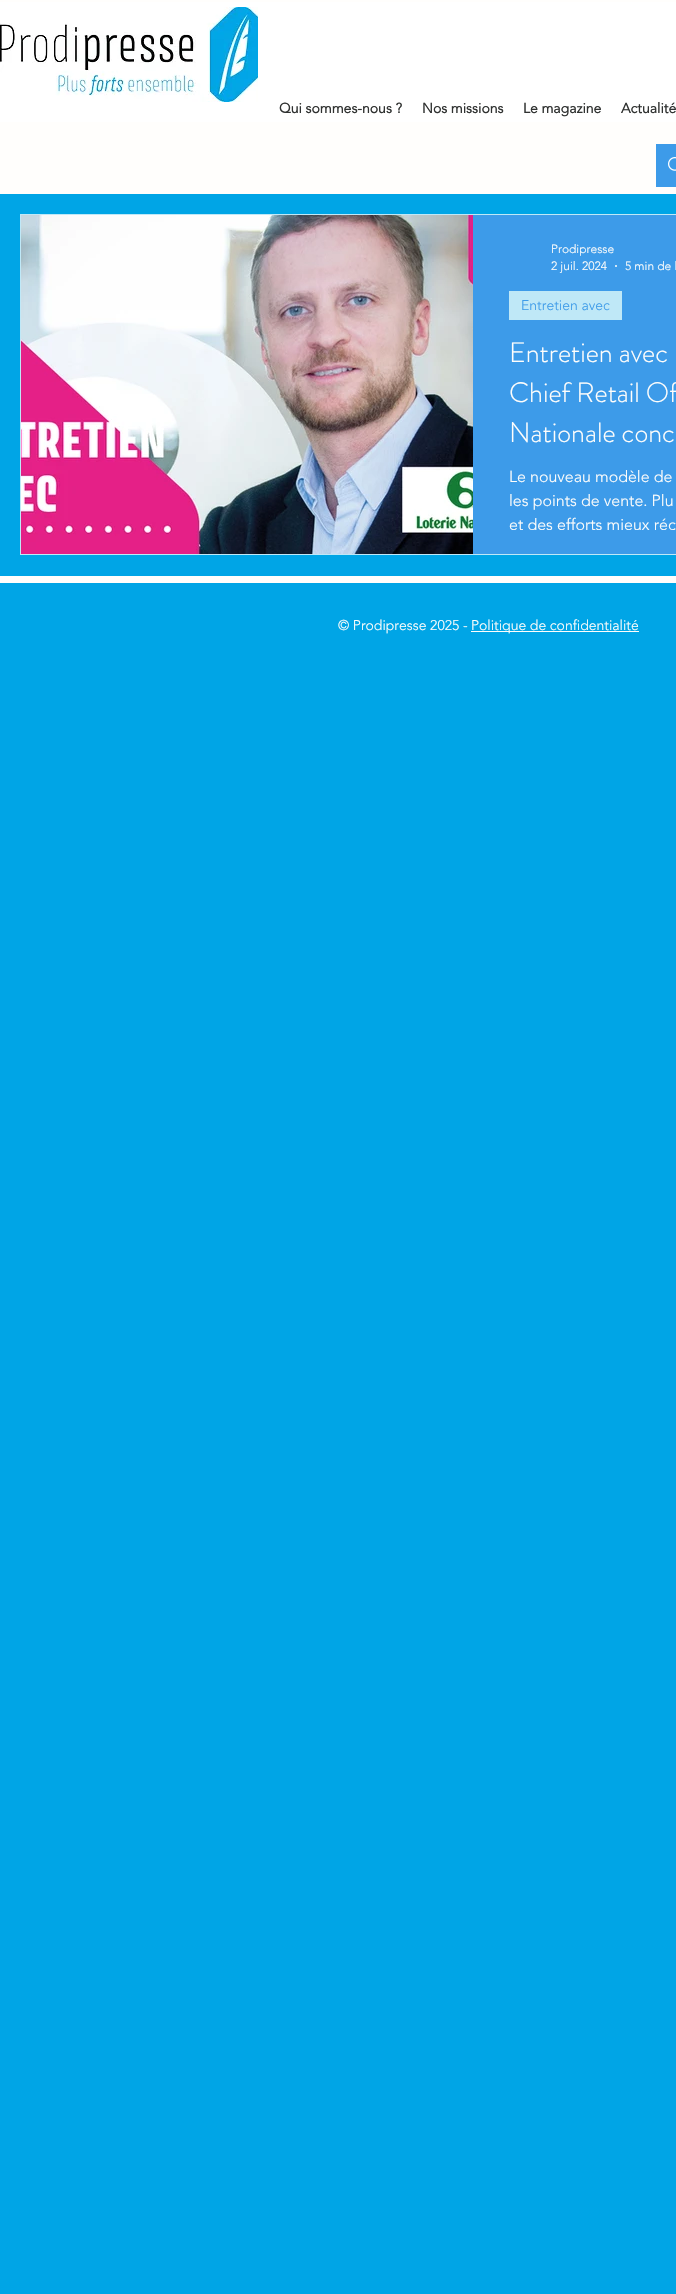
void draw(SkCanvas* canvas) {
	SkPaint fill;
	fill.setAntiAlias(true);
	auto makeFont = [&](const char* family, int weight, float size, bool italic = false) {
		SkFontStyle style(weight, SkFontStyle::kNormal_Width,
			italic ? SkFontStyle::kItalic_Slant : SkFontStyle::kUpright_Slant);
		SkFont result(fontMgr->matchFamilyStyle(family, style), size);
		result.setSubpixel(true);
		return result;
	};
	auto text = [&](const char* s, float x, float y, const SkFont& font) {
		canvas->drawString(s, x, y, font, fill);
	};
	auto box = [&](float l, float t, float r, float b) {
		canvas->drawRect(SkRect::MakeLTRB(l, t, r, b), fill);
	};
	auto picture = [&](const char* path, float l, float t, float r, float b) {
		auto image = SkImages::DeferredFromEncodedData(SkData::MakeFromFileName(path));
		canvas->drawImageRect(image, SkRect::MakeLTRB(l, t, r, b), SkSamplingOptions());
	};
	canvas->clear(0xFF00A5E6);
	fill.setColor(0xFFFFFEFC);
	box(0, 0, 676, 2);
	fill.setColor(0xFFFFFFFF);
	box(0, 2, 676, 122);
	picture("image0.png", 0, 7, 258, 102);
	fill.setColor(0xFFFFFEFC);
	box(0, 122, 676, 194);
	fill.setColor(0xFF3D9BE9);
	box(656, 144, 676, 187);
	picture("image1.png", 668, 157, 676, 171);
	fill.setStyle(SkPaint::kStroke_Style);
	fill.setStrokeWidth(1);
	fill.setColor(0xFFBFE8F7);
	canvas->drawRect(SkRect::MakeLTRB(20.5f, 214.5f, 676.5f, 554.5f), fill);
	picture("image2.png", 21, 215, 473, 554);
	fill.setStyle(SkPaint::kFill_Style);
	fill.setColor(0xFF3D9BE9);
	box(473, 215, 676, 554);
	fill.setColor(0xFFFFFEFC);
	canvas->drawCircle(616, 266, 1, fill);
	fill.setColor(0xFFBFE8F7);
	box(509, 291, 622, 320);
	fill.setColor(0xFFFFFEFC);
	box(0, 576, 676, 583);
	box(471, 631, 639, 632);
	auto font1 = makeFont("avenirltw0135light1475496", 700, 14);
	fill.setColor(0xFF303231);
	text("Qui sommes-nous ?", 279, 113, font1);
	text("Nos missions", 422, 113, font1);
	text("Le magazine", 523, 113, font1);
	text("Actualité", 621, 113, font1);
	auto font2 = makeFont("avenirltw0135light1475496", 300, 12);
	fill.setColor(0xFFFFFEFC);
	text("Prodipresse", 551, 253, font2);
	text("2 juil. 2024", 551, 270, font2);
	text("5 min de l", 625, 270, font2);
	auto font3 = makeFont("avenirltw0135light1475496", 300, 14);
	fill.setColor(0xFF3D9BE9);
	text("Entretien avec", 521, 310, font3);
	auto font4 = makeFont("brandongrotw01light", 300, 28);
	fill.setColor(0xFFFFFEFC);
	text("Entretien avec", 509, 362, font4);
	text("Chief Retail Of", 509, 402, font4);
	text("Nationale conc", 509, 442, font4);
	auto font5 = makeFont("avenirltw0135light1475496", 300, 16);
	text("Le nouveau modèle de", 509, 482, font5);
	text("les points de vente. Plu", 509, 506, font5);
	canvas->save();
	canvas->clipRect(SkRect::MakeLTRB(509, 465, 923, 530));
	text("et des efforts mieux réc", 509, 530, font5);
	canvas->restore();
	text("© Prodipresse 2025 -", 338, 630, font3);
	text("Politique de confidentialité", 471, 630, font3);
}
